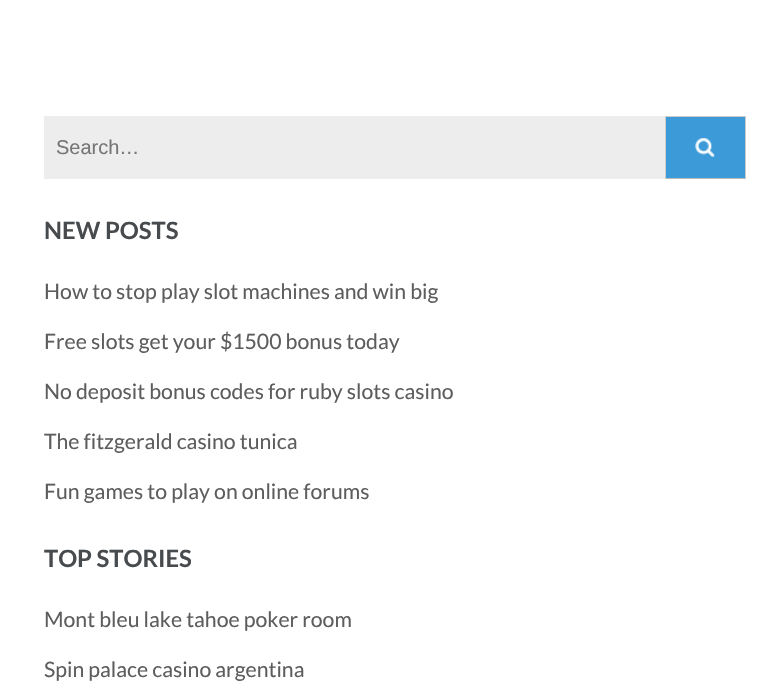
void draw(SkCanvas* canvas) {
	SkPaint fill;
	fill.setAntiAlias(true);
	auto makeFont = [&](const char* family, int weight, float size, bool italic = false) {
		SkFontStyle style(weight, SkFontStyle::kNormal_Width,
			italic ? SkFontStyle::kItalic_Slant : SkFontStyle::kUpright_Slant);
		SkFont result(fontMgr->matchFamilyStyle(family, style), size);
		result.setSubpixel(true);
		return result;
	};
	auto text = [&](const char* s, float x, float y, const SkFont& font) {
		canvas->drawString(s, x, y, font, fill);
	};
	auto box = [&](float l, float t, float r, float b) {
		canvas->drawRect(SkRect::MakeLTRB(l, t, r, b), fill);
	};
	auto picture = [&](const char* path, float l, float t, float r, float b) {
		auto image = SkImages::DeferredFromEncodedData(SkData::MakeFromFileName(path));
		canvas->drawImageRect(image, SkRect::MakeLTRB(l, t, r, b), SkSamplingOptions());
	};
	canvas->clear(0xFFFFFFFF);
	fill.setColor(0xFFEDEDED);
	box(44, 116, 665, 179);
	fill.setColor(0xFF3B9AD7);
	box(666, 117, 745, 178);
	picture("image0.png", 695, 138, 715, 157);
	fill.setColor(0xFFCCCCCC);
	box(665, 116, 746, 117);
	box(745, 116, 746, 179);
	fill.setColor(0xFFBBBBBB);
	box(665, 178, 746, 179);
	fill.setColor(0xFFCCCCCC);
	box(665, 116, 666, 179);
	auto font1 = makeFont("Liberation Sans", 400, 20);
	fill.setColor(0xFF757575);
	text("Search…", 56, 154, font1);
	auto font2 = makeFont("Lato", 700, 23.75f);
	fill.setColor(0xFF474B4E);
	text("NEW POSTS", 44, 239, font2);
	auto font3 = makeFont("Lato", 400, 21.25f);
	fill.setColor(0xFF5D5D5D);
	text("How to stop play slot machines and win big", 44, 299, font3);
	text("Free slots get your $1500 bonus today", 44, 349, font3);
	text("No deposit bonus codes for ruby slots casino", 44, 399, font3);
	text("The fitzgerald casino tunica", 44, 449, font3);
	text("Fun games to play on online forums", 44, 499, font3);
	fill.setColor(0xFF474B4E);
	text("TOP STORIES", 44, 567, font2);
	fill.setColor(0xFF5D5D5D);
	text("Mont bleu lake tahoe poker room", 44, 627, font3);
	text("Spin palace casino argentina", 44, 677, font3);
}
